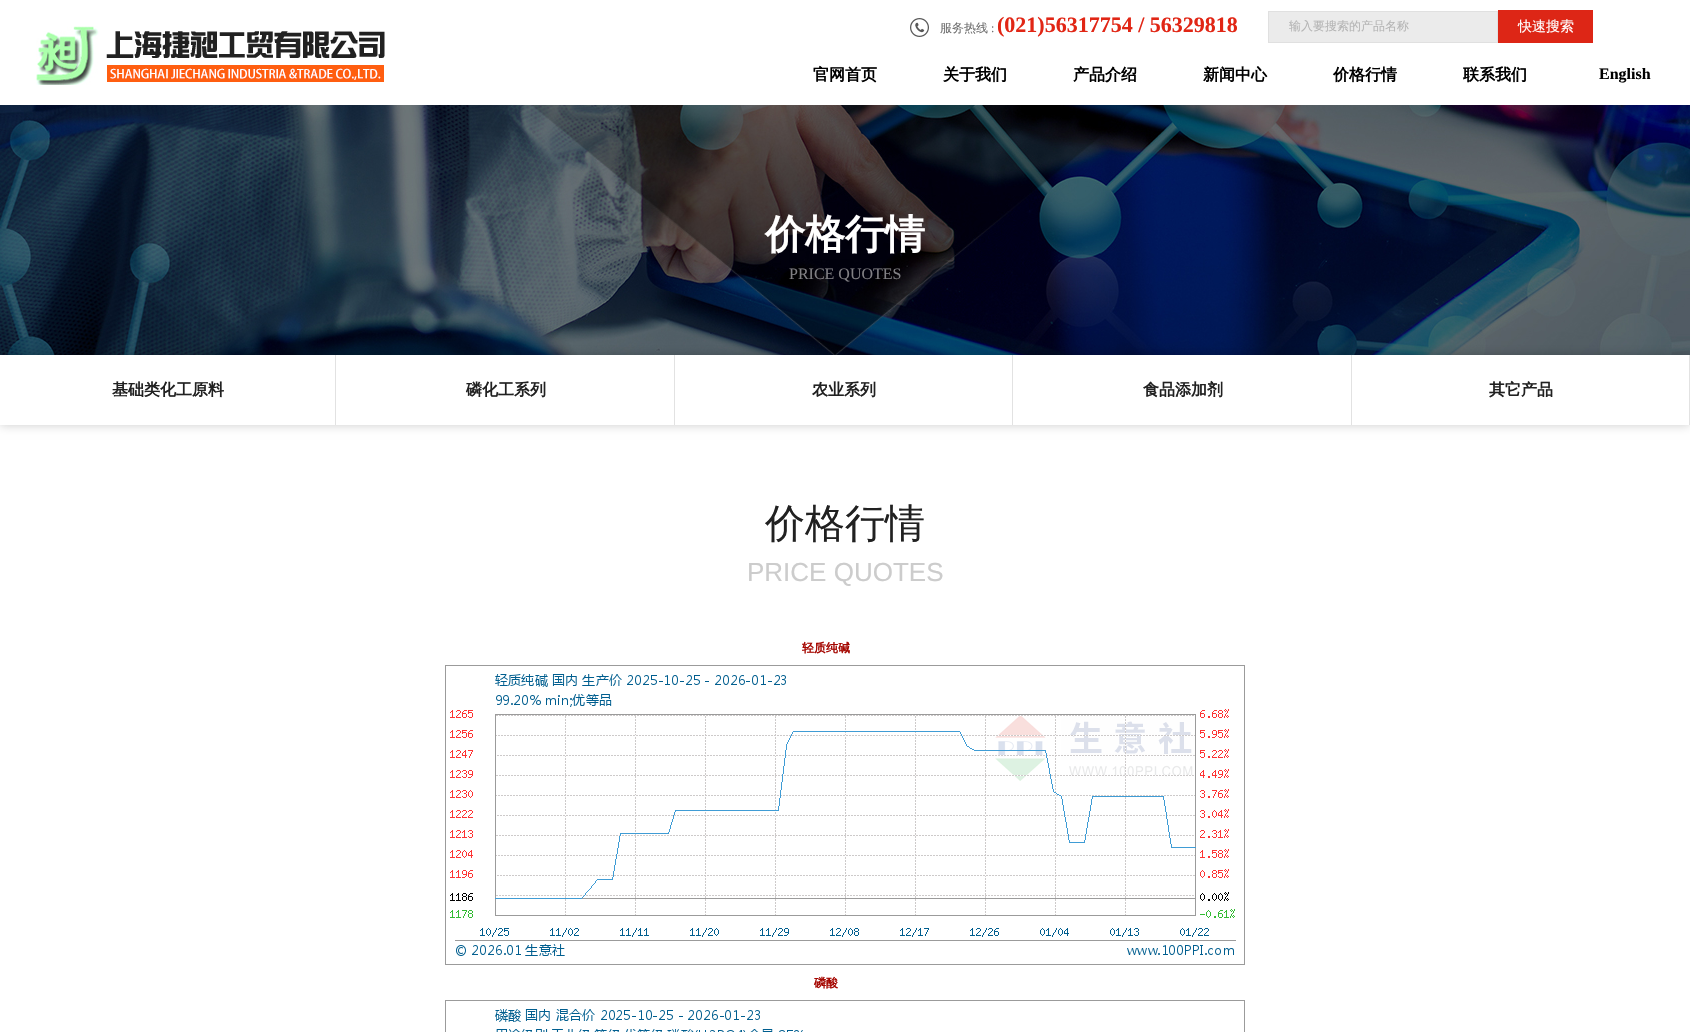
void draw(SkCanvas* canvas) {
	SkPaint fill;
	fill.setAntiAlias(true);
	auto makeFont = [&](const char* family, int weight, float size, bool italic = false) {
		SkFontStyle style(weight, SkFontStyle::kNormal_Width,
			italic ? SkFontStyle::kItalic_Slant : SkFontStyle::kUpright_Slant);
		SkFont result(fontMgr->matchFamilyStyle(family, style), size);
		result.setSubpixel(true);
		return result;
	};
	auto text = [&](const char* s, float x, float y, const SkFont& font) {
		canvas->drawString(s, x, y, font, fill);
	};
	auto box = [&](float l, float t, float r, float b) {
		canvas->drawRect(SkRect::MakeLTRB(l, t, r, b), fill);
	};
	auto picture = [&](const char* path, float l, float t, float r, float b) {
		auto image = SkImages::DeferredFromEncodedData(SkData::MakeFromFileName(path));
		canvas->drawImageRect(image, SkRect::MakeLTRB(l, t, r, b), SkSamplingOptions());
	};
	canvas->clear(0xFFFFFFFF);
	picture("image0.png", 36, 26, 385, 85);
	picture("image1.png", 910, 18, 929, 37);
	fill.setColor(0xFFEBEBEB);
	canvas->drawRect(SkRect::MakeLTRB(1268.5f, 11.5f, 1497.5f, 42.5f), fill);
	fill.setStyle(SkPaint::kStroke_Style);
	fill.setStrokeWidth(1);
	fill.setColor(0xFFE0E0E0);
	canvas->drawRect(SkRect::MakeLTRB(1268.5f, 11.5f, 1497.5f, 42.5f), fill);
	fill.setStyle(SkPaint::kFill_Style);
	fill.setColor(0xFFDD2616);
	box(1498, 10, 1593, 43);
	picture("image2.png", 0, 105, 1690, 355);
	canvas->save();
	canvas->clipPath(SkPathBuilder(SkPathFillType::kEvenOdd).moveTo(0, 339).lineTo(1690, 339).lineTo(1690, 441).lineTo(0, 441).close().moveTo(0, 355).lineTo(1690, 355).lineTo(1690, 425).lineTo(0, 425).close().detach(), true);
	fill.setColor(0x33000000);
	fill.setMaskFilter(SkMaskFilter::MakeBlur(kNormal_SkBlurStyle, 5));
	canvas->drawRect(SkRect::MakeLTRB(0, 355, 1690, 425), fill);
	fill.setMaskFilter(nullptr);
	canvas->restore();
	fill.setColor(0xFFE2E2E2);
	box(335, 355, 336, 425);
	box(674, 355, 675, 425);
	box(1012, 355, 1013, 425);
	box(1351, 355, 1352, 425);
	box(1689, 355, 1690, 425);
	picture("image3.png", 445, 665, 1245, 965);
	picture("image4.png", 445, 1000, 1245, 1032);
	auto font1 = makeFont("WenQuanYi Zen Hei", 500, 12);
	fill.setColor(0xFF6E6E6E);
	text("服务热线", 940, 32, font1);
	auto font2 = makeFont("Liberation Serif", 400, 12);
	text(":", 991, 32, font2);
	auto font3 = makeFont("Liberation Serif", 700, 22);
	fill.setColor(0xFFE12615);
	text("(021)56317754 / 56329818", 997, 32, font3);
	fill.setColor(0xFFB5B5B5);
	text("输入要搜索的产品名称", 1289, 30, font1);
	auto font4 = makeFont("WenQuanYi Zen Hei", 500, 14);
	fill.setColor(0xFFFFFFFF);
	text("快速搜索", 1518, 31, font4);
	auto font5 = makeFont("WenQuanYi Zen Hei", 700, 16);
	fill.setColor(0xFF000000);
	text("官网首页", 813, 80, font5);
	text("关于我们", 943, 80, font5);
	text("产品介绍", 1073, 80, font5);
	text("新闻中心", 1203, 80, font5);
	text("价格行情", 1333, 80, font5);
	text("联系我们", 1463, 80, font5);
	auto font6 = makeFont("Liberation Serif", 700, 16);
	text("English", 1599, 79, font6);
	auto font7 = makeFont("WenQuanYi Zen Hei", 700, 40);
	fill.setColor(0xFFFFFFFF);
	text("价格行情", 765, 248, font7);
	auto font8 = makeFont("Liberation Serif", 400, 16);
	fill.setColor(0xFF818084);
	text("PRICE QUOTES", 789, 279, font8);
	fill.setColor(0xFF212121);
	text("基础类化工原料", 112, 395, font5);
	text("磷化工系列", 466, 395, font5);
	text("农业系列", 812, 395, font5);
	text("食品添加剂", 1143, 395, font5);
	text("其它产品", 1489, 395, font5);
	auto font9 = makeFont("WenQuanYi Zen Hei", 500, 40);
	text("价格行情", 765, 537, font9);
	auto font10 = makeFont("Liberation Sans", 400, 26);
	fill.setColor(0xFFCCCCCC);
	text("PRICE QUOTES", 747, 581, font10);
	auto font11 = makeFont("WenQuanYi Zen Hei", 700, 12);
	fill.setColor(0xFFA50701);
	text("轻质纯碱", 802, 652, font11);
	text("磷酸", 814, 987, font11);
}
